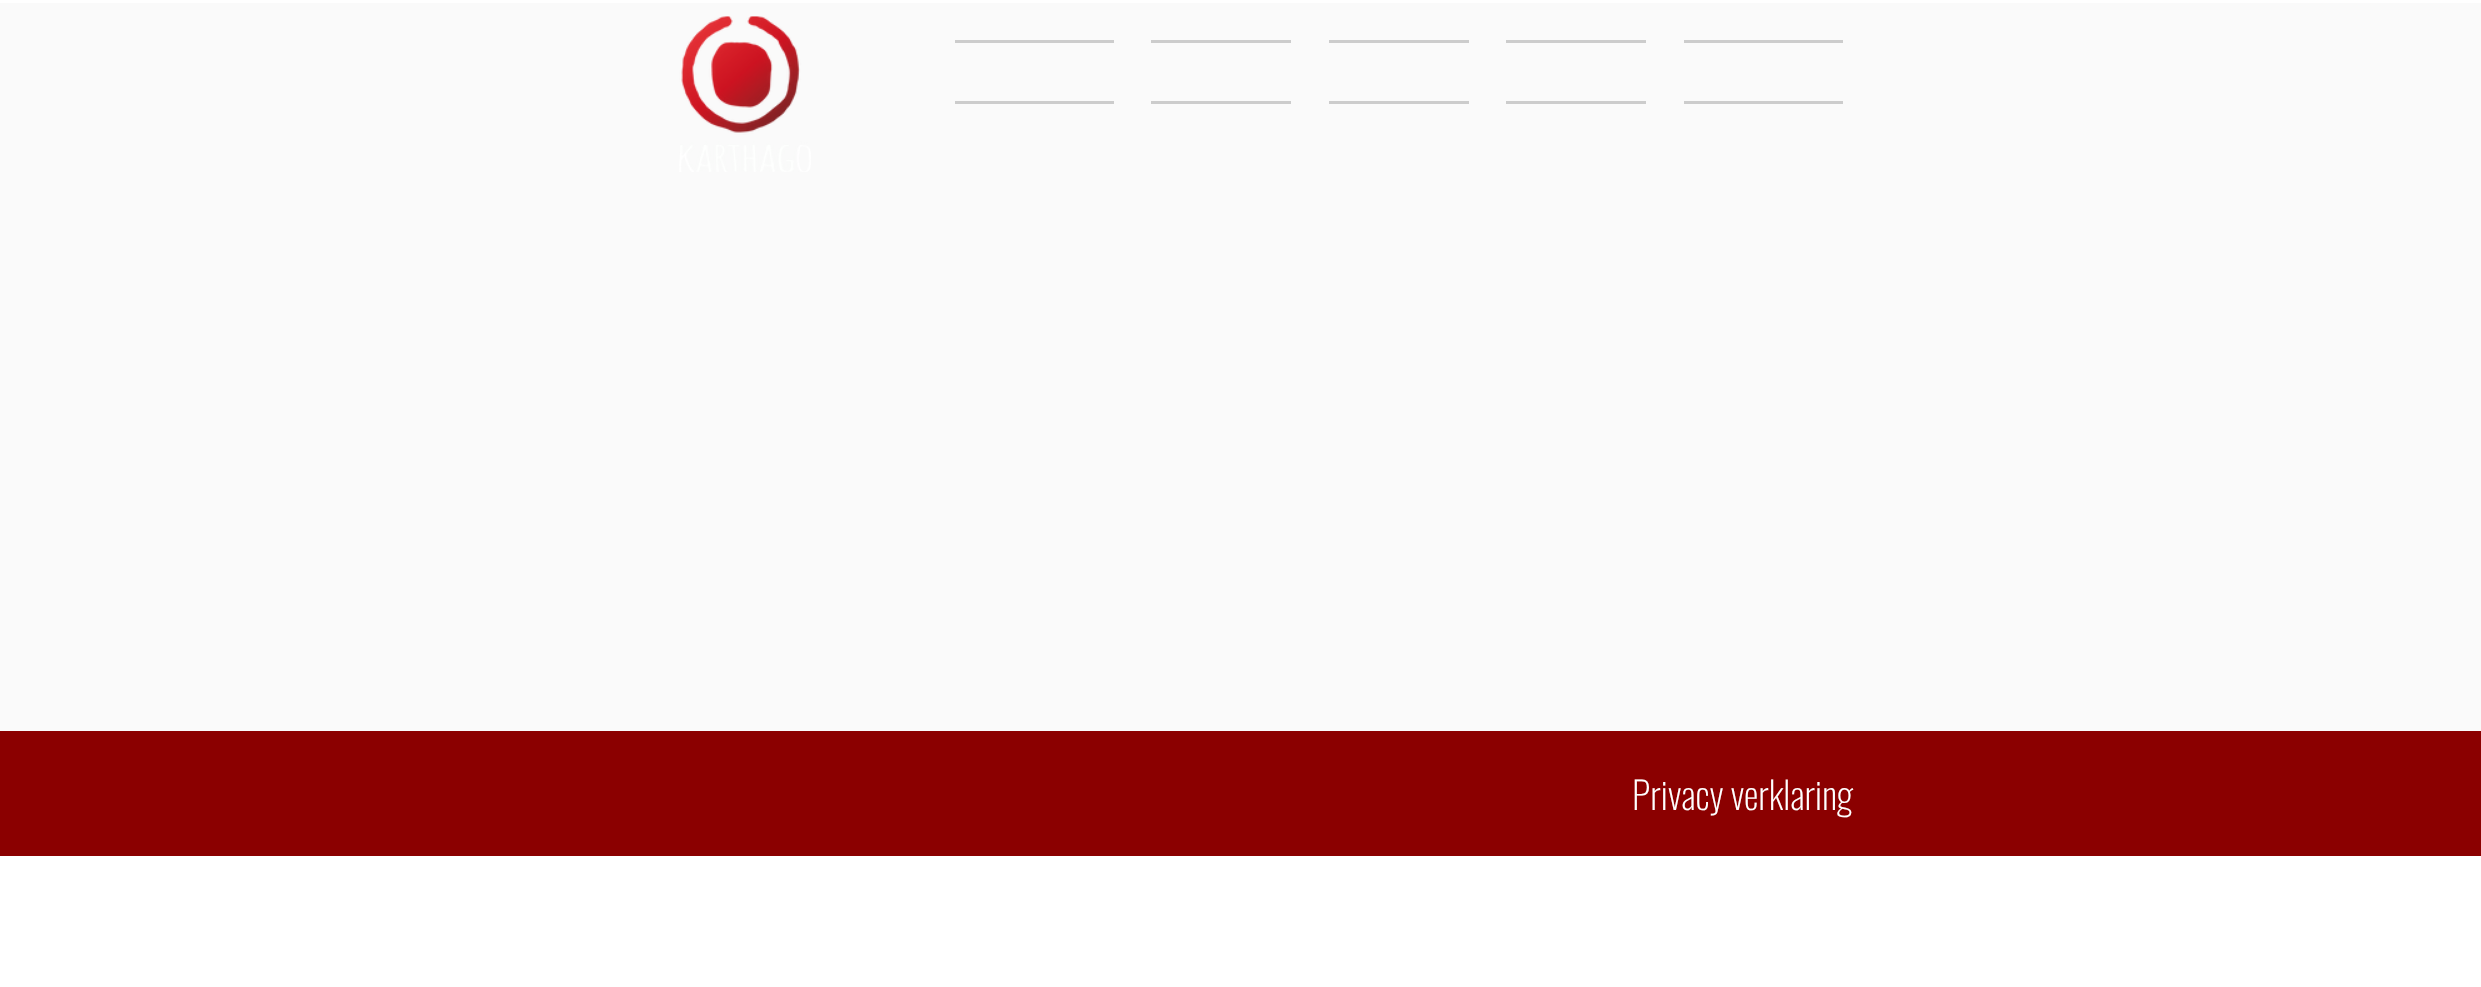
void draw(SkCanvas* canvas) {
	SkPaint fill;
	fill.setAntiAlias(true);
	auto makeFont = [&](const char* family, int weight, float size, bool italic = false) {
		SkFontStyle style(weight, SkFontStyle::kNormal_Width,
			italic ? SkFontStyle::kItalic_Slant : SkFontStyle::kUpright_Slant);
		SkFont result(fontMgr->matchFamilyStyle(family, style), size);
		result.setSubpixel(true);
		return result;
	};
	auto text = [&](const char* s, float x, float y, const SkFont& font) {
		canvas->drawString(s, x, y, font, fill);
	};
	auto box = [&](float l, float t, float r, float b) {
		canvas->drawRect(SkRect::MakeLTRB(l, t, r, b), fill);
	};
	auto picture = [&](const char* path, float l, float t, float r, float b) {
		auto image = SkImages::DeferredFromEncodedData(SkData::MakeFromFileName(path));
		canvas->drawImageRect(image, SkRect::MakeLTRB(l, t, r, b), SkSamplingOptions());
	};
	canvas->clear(0xFFFFFFFF);
	fill.setColor(0xFFFAFAFA);
	box(0, 3, 2481, 731);
	fill.setColor(0xFFCCCCCC);
	box(955, 40, 1114, 43);
	box(955, 101, 1114, 104);
	box(1151, 40, 1291, 43);
	box(1151, 101, 1291, 104);
	box(1329, 40, 1469, 43);
	box(1329, 101, 1469, 104);
	box(1506, 40, 1646, 43);
	box(1506, 101, 1646, 104);
	box(1684, 40, 1843, 43);
	box(1684, 101, 1843, 104);
	picture("image0.png", 679, 16, 811, 172);
	fill.setColor(0xFF8B0000);
	box(0, 731, 2481, 856);
	auto font1 = makeFont("Oswald", 200, 37.5f);
	fill.setColor(0xFFFFFFFF);
	text("Privacy verklaring", 1632, 810, font1);
}
